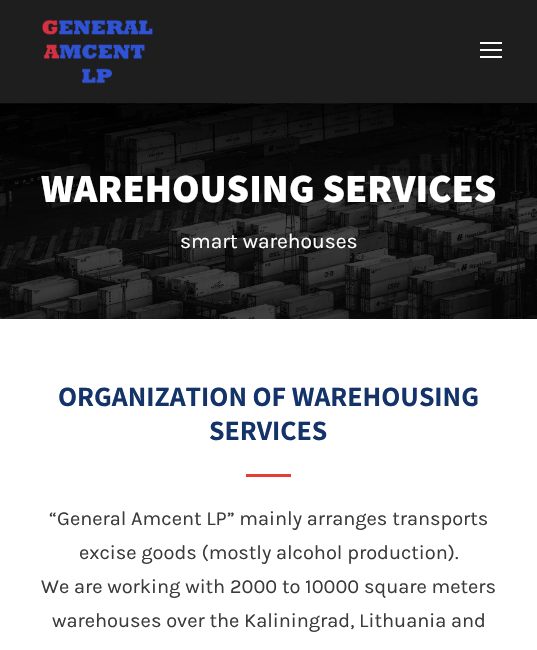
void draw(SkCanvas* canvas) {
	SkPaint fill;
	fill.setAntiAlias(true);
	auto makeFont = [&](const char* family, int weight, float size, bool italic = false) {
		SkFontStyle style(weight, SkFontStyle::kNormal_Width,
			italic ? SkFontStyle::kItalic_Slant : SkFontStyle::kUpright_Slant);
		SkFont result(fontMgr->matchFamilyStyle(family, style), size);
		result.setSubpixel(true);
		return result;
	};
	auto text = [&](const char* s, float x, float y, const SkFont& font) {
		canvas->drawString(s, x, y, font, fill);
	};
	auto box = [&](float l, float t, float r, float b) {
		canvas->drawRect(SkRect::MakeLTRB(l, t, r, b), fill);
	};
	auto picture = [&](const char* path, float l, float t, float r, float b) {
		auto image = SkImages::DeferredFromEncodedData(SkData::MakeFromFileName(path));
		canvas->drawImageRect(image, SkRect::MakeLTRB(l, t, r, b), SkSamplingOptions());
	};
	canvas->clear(0xFFFFFFFF);
	fill.setColor(0xFF1E1E1E);
	box(0, 0, 537, 103);
	picture("image0.png", 42, 19, 153, 84);
	fill.setColor(0xFFFFFFFF);
	box(480, 42, 502, 44);
	box(480, 49, 502, 51);
	box(480, 56, 502, 58);
	picture("image1.png", 0, 103, 537, 319);
	fill.setColor(0xFFE53C35);
	box(246, 474, 291, 477);
	auto font1 = makeFont("Assistant", 800, 40);
	fill.setColor(0xFFFFFFFF);
	text("WAREHOUSING SERVICES", 41, 202, font1);
	auto font2 = makeFont("Karla", 400, 21);
	text("smart warehouses", 180, 248, font2);
	auto font3 = makeFont("Assistant", 700, 28);
	fill.setColor(0xFF143369);
	text("ORGANIZATION OF WAREHOUSING", 58, 406, font3);
	text("SERVICES", 209, 440, font3);
	auto font4 = makeFont("Karla", 400, 20);
	fill.setColor(0xFF3B3B3B);
	text("“General Amcent LP” mainly arranges transports", 49, 525, font4);
	text("excise goods (mostly alcohol production).", 79, 559, font4);
	text("We are working with 2000 to 10000 square meters", 41, 593, font4);
	text("warehouses over the Kaliningrad, Lithuania and", 52, 627, font4);
}
